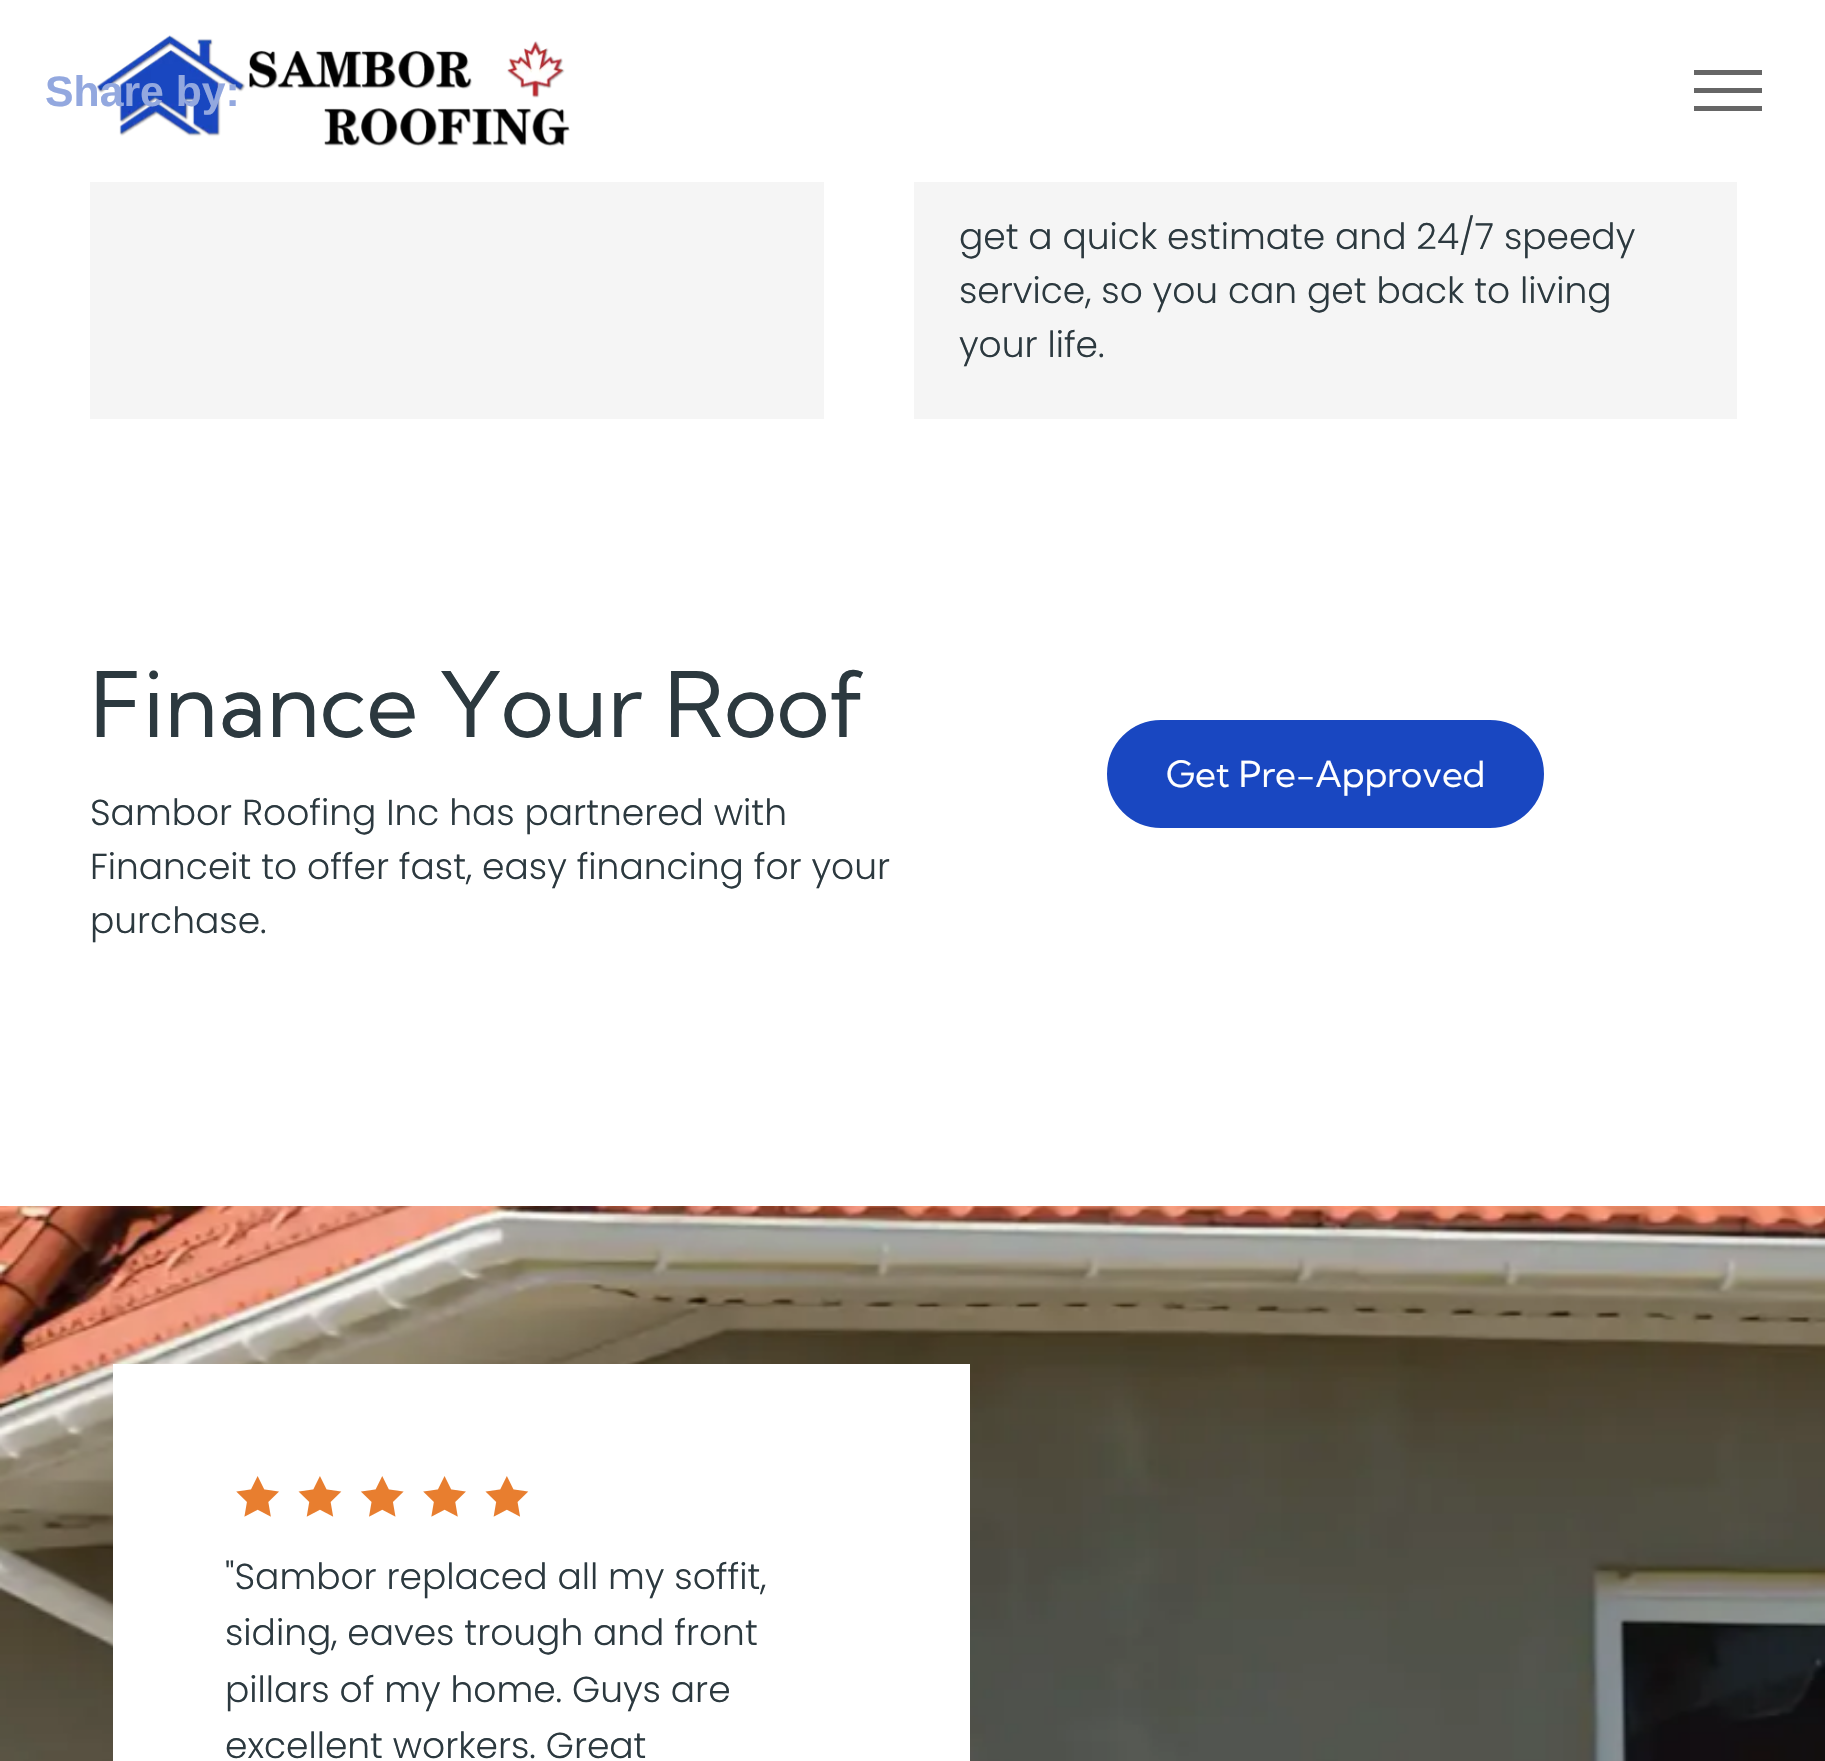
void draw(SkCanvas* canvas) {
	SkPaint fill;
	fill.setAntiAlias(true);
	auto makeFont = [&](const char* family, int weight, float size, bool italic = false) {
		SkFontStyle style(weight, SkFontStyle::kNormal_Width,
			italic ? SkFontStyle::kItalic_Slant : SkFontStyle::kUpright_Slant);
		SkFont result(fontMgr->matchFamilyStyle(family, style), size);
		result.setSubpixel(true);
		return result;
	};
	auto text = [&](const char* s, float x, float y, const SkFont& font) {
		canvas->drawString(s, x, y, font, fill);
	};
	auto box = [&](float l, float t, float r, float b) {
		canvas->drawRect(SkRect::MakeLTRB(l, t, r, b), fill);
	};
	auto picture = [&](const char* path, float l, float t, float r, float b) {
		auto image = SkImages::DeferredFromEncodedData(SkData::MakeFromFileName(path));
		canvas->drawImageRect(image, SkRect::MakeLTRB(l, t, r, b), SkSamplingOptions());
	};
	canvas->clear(0xFFFFFFFF);
	picture("image0.png", 96, 35, 570, 147);
	fill.setColor(0xFF666666);
	box(1694, 70, 1762, 75);
	box(1694, 88, 1762, 93);
	box(1694, 106, 1762, 111);
	fill.setColor(0xFFF5F5F5);
	box(90, 182, 824, 419);
	box(914, 182, 1737, 419);
	fill.setColor(0xFF1947C1);
	canvas->drawRoundRect(SkRect::MakeLTRB(1108, 721, 1543, 827), 53, 53, fill);
	fill.setStyle(SkPaint::kStroke_Style);
	fill.setStrokeWidth(2);
	canvas->drawRoundRect(SkRect::MakeLTRB(1108, 721, 1543, 827), 53, 53, fill);
	picture("image1.png", 0, 1206, 1825, 1761);
	fill.setStyle(SkPaint::kFill_Style);
	fill.setColor(0xFFFFFFFF);
	box(113, 1364, 970, 1761);
	picture("image2.png", 236, 1476, 529, 1517);
	auto font1 = makeFont("Liberation Sans", 700, 42.75f);
	fill.setColor(0xFF93A8DF);
	text("Share by:", 45, 106, font1);
	auto font2 = makeFont("Poppins", 300, 36);
	fill.setColor(0xFF2C393F);
	text("get a quick estimate and 24/7 speedy", 959, 249, font2);
	text("service, so you can get back to living", 959, 303, font2);
	text("your life.", 959, 357, font2);
	auto font3 = makeFont("Kumbh Sans", 400, 90);
	text("Finance Your Roof", 90, 737, font3);
	text("Sambor Roofing Inc has partnered with", 90, 825, font2);
	text("Financeit to offer fast, easy financing for your", 90, 879, font2);
	text("purchase.", 90, 933, font2);
	auto font4 = makeFont("Kumbh Sans", 400, 36);
	fill.setColor(0xFFFFFFFF);
	text("Get Pre-Approved", 1166, 787, font4);
	fill.setColor(0xFF2C393F);
	text("\"Sambor replaced all my soffit,", 225, 1589, font2);
	text("siding, eaves trough and front", 225, 1645, font2);
	text("pillars of my home. Guys are", 225, 1702, font2);
	text("excellent workers. Great", 225, 1758, font2);
}
